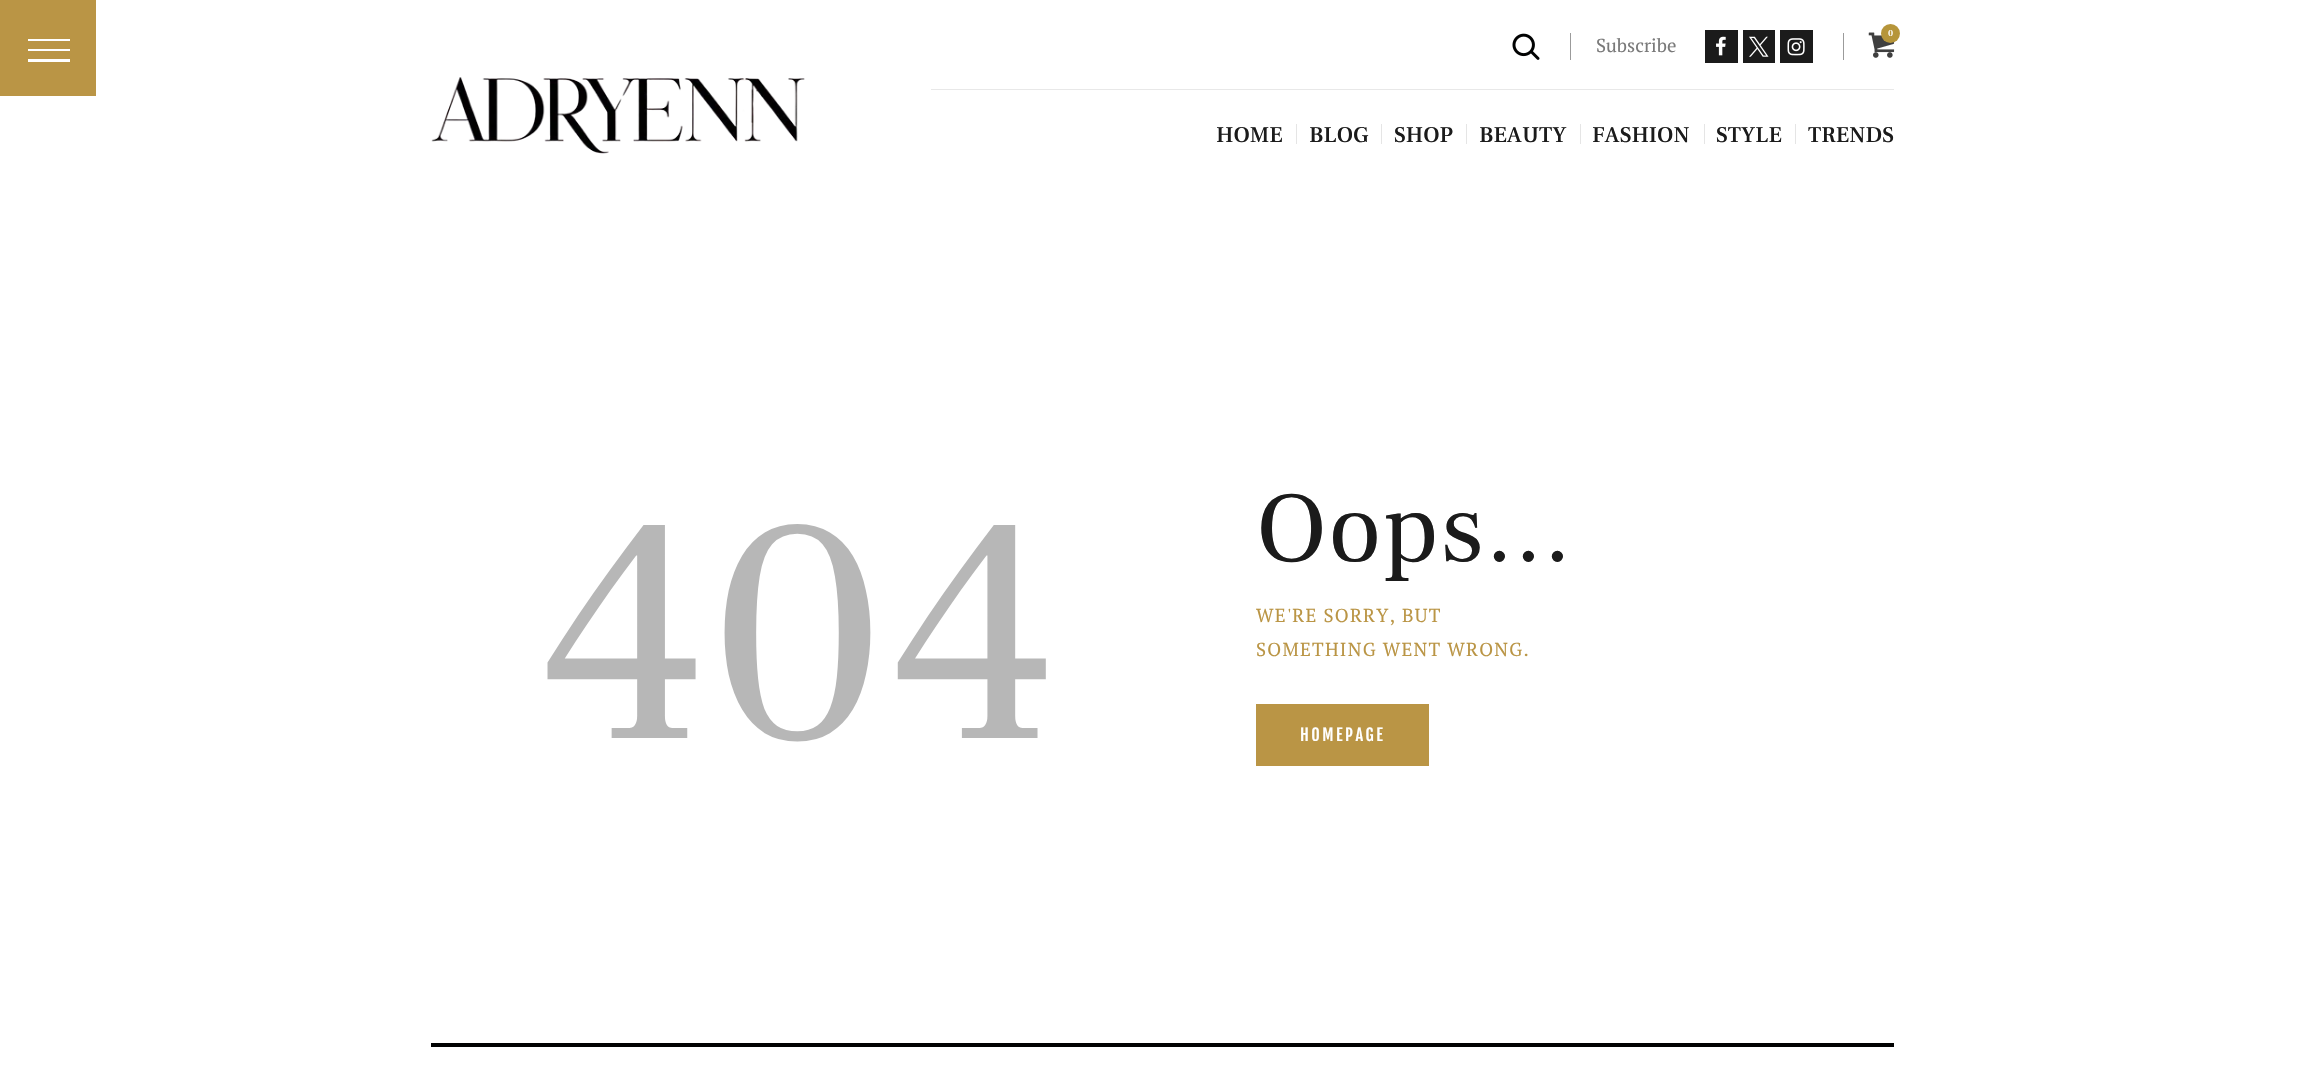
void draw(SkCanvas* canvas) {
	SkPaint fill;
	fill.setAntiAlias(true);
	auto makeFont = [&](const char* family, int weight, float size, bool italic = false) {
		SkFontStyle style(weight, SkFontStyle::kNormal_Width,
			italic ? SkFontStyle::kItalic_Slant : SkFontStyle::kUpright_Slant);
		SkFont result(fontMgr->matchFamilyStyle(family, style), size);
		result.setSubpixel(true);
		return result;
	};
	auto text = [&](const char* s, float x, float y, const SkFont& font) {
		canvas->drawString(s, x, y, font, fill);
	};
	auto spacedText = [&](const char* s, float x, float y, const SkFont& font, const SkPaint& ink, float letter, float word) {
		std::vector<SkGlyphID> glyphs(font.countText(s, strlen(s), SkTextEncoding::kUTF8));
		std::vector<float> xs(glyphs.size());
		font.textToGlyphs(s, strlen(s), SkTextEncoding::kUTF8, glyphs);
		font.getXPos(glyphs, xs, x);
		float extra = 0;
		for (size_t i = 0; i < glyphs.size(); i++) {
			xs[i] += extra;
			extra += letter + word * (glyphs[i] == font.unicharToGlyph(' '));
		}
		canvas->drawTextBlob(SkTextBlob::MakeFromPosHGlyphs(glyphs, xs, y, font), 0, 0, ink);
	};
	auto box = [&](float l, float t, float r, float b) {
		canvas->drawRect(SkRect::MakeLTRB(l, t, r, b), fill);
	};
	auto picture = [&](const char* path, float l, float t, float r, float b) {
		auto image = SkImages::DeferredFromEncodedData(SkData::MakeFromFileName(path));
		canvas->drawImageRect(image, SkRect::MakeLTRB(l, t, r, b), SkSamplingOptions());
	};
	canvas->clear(0xFFFFFFFF);
	fill.setColor(0xFFBA9545);
	box(0, 0, 96, 96);
	fill.setColor(0xFFFFFFFF);
	canvas->drawPath(SkPathBuilder().moveTo(70, 39).lineTo(70, 41).lineTo(28, 41).lineTo(28, 39).close().moveTo(28, 51).lineTo(70, 51).lineTo(70, 49).lineTo(28, 49).close().moveTo(28, 62).lineTo(70, 62).lineTo(70, 59).lineTo(28, 59).close().detach(), fill);
	picture("image0.png", 431, 77, 805, 154);
	picture("image1.png", 1512, 33, 1540, 60);
	fill.setColor(0xFF9B9B9B);
	box(1570, 33, 1571, 60);
	fill.setColor(0xFF1B1B1B);
	box(1705, 30, 1738, 63);
	picture("image2.png", 1716, 36, 1726, 56);
	box(1743, 30, 1775, 63);
	picture("image3.png", 1749, 36, 1769, 57);
	box(1780, 30, 1813, 63);
	picture("image4.png", 1787, 38, 1805, 56);
	fill.setColor(0xFF9B9B9B);
	box(1843, 33, 1844, 60);
	picture("image5.png", 1868, 32, 1895, 58);
	fill.setColor(0xFFB6953A);
	canvas->drawCircle(1890.5f, 33.5f, 9.5f, fill);
	fill.setColor(0xFFE8E8E8);
	box(931, 89, 1894, 90);
	fill.setColor(0xFFE5E5E5);
	box(1296, 124, 1297, 144);
	box(1381, 124, 1382, 144);
	box(1466, 124, 1467, 144);
	box(1580, 124, 1581, 144);
	box(1704, 124, 1705, 144);
	box(1795, 124, 1796, 144);
	fill.setColor(0xFFBA9545);
	box(1256, 704, 1429, 766);
	fill.setColor(0xFF010202);
	box(431, 1043, 1894, 1047);
	auto font1 = makeFont("PT Serif", 400, 18.75f);
	fill.setColor(0xFF7A7A7A);
	text("Subscribe", 1596, 52, font1);
	auto font2 = makeFont("Frank Ruhl Libre", 500, 9);
	fill.setColor(0xFFFFFFFF);
	text("0", 1888, 36, font2);
	auto font3 = makeFont("Frank Ruhl Libre", 500, 22.5f);
	fill.setColor(0xFF1B1B1B);
	text("HOME", 1216, 142, font3);
	text("BLOG", 1309, 142, font3);
	text("SHOP", 1394, 142, font3);
	text("BEAUTY", 1479, 142, font3);
	text("FASHION", 1592, 142, font3);
	text("STYLE", 1716, 142, font3);
	text("TRENDS", 1808, 142, font3);
	auto font4 = makeFont("Frank Ruhl Libre", 400, 319);
	fill.setColor(0xFFB7B7B7);
	text("404", 537, 738, font4);
	auto font5 = makeFont("Frank Ruhl Libre", 400, 100);
	fill.setColor(0xFF1B1B1B);
	spacedText("Oops...", 1256, 561, font5, fill, 1.25f, 0);
	fill.setColor(0xFFBA9545);
	spacedText("WE'RE SORRY, BUT", 1256, 622, font1, fill, 1.25f, 0);
	spacedText("SOMETHING WENT WRONG.", 1256, 656, font1, fill, 1.25f, 0);
	auto font6 = makeFont("Fjalla One", 400, 16.25f);
	fill.setColor(0xFFFFFFFF);
	spacedText("HOMEPAGE", 1300, 741, font6, fill, 2.5f, 0);
}
